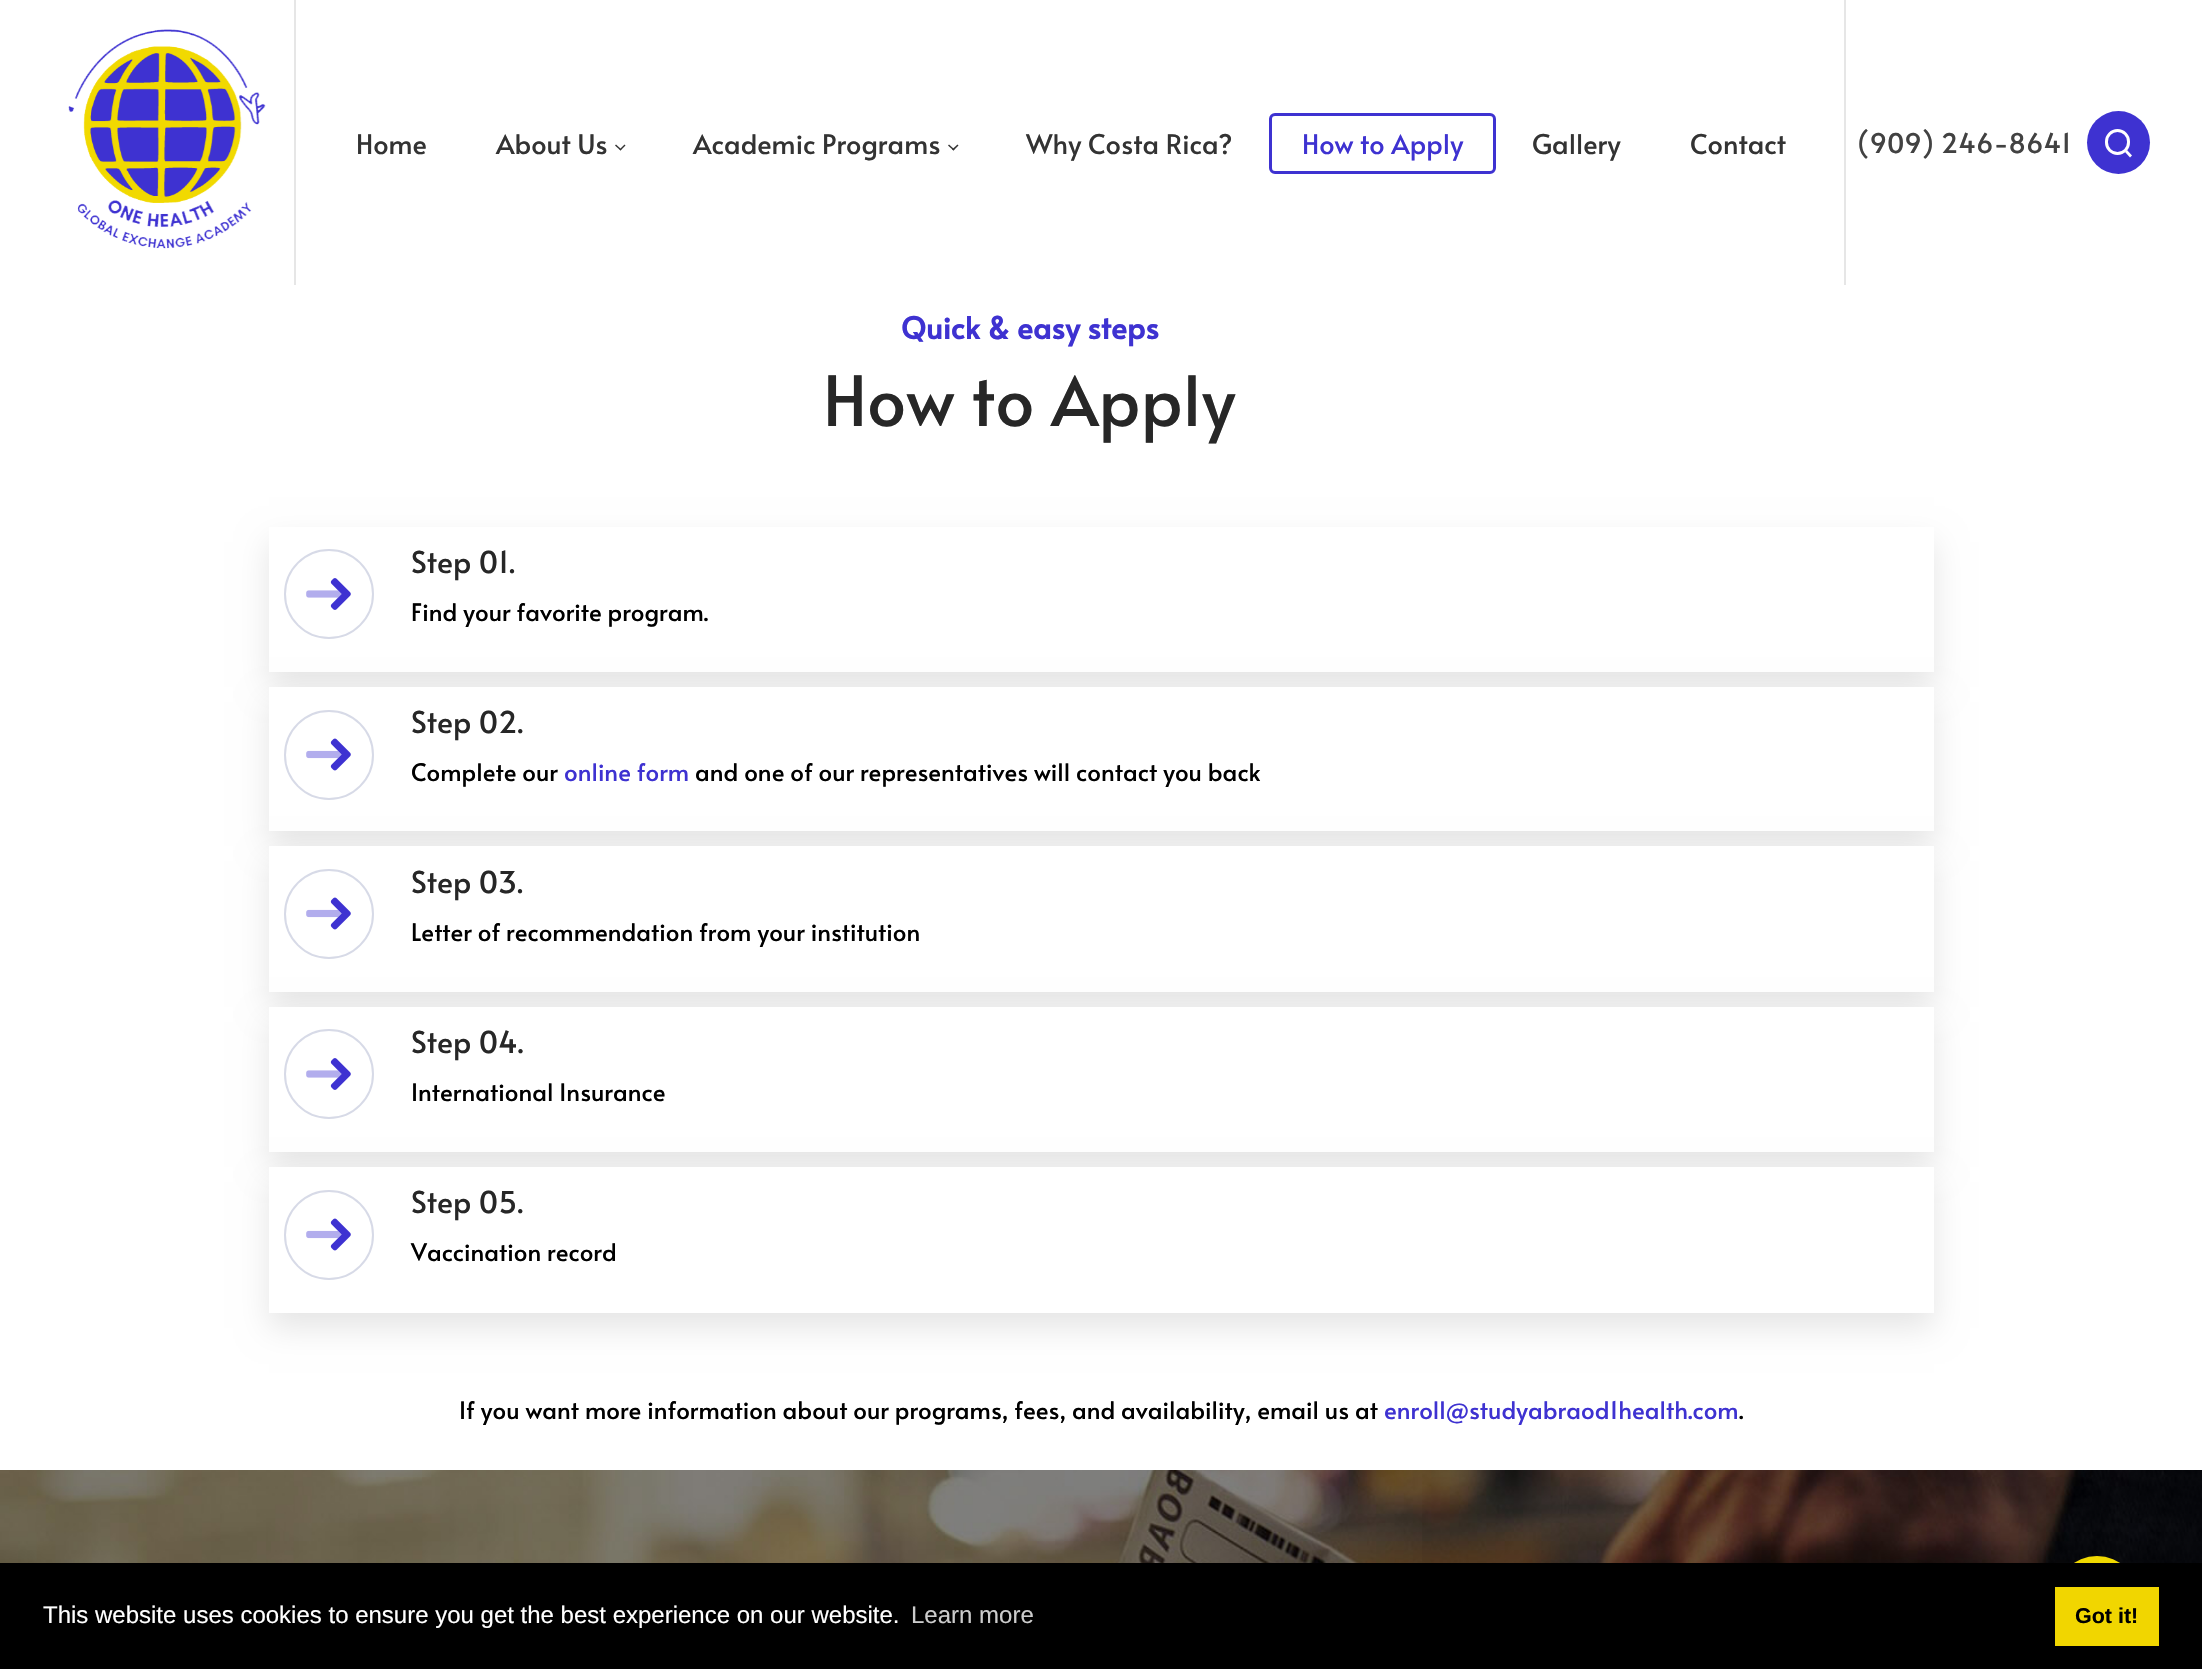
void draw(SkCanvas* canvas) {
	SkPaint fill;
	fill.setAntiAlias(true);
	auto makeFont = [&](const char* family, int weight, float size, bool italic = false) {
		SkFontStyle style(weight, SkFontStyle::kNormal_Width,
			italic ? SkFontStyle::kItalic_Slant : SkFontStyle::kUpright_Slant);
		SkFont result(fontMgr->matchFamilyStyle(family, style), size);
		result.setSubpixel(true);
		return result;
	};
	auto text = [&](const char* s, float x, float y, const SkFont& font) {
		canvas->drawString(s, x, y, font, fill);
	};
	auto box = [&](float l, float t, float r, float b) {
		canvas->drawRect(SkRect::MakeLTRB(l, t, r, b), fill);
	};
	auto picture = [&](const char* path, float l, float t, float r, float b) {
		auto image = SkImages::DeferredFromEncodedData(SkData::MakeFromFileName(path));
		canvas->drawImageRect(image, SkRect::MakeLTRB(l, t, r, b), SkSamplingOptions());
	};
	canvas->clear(0xFFFFFFFF);
	fill.setColor(0xFFE6E6E6);
	box(294, 0, 296, 285);
	picture("image0.png", 68, 29, 266, 249);
	box(1844, 0, 1846, 285);
	fill.setColor(0xFF333333);
	canvas->drawPath(SkPathBuilder().moveTo(624.5f, 144.5f).lineTo(625.5f, 145.5f).lineTo(620.5f, 150.5f).lineTo(619.5f, 149.5f).close().detach(), fill);
	canvas->drawPath(SkPathBuilder().moveTo(616, 144.5f).lineTo(621.5f, 149.5f).lineTo(620.5f, 150.5f).lineTo(615, 145.5f).close().detach(), fill);
	canvas->drawPath(SkPathBuilder().moveTo(957.5f, 144.5f).lineTo(958.5f, 145.5f).lineTo(953.5f, 150.5f).lineTo(952, 149.5f).close().detach(), fill);
	canvas->drawPath(SkPathBuilder().moveTo(949, 144.5f).lineTo(954.5f, 149.5f).lineTo(953.5f, 150.5f).lineTo(948, 145.5f).close().detach(), fill);
	fill.setStyle(SkPaint::kStroke_Style);
	fill.setStrokeWidth(3);
	fill.setColor(0xFF3E32D1);
	canvas->drawRoundRect(SkRect::MakeLTRB(1270.5f, 114.5f, 1494.5f, 172.5f), 4.5f, 4.5f, fill);
	fill.setStyle(SkPaint::kFill_Style);
	canvas->drawCircle(2118.5f, 142.5f, 31.5f, fill);
	fill.setStyle(SkPaint::kStroke_Style);
	fill.setColor(0xFFFFFFFF);
	canvas->drawRoundRect(SkRect::MakeLTRB(2106.5f, 130.5f, 2128.5f, 153.5f), 11, 11, fill);
	fill.setStyle(SkPaint::kFill_Style);
	canvas->drawPath(SkPathBuilder().moveTo(2127, 150).lineTo(2132, 155.5f).lineTo(2130, 157.5f).lineTo(2125, 152).close().detach(), fill);
	fill.setColor(0x1A000000);
	fill.setMaskFilter(SkMaskFilter::MakeBlur(kNormal_SkBlurStyle, 15));
	canvas->drawRect(SkRect::MakeLTRB(269, 542, 1934, 687), fill);
	fill.setMaskFilter(nullptr);
	fill.setColor(0xFFFFFFFF);
	box(269, 527, 1934, 672);
	fill.setStyle(SkPaint::kStroke_Style);
	fill.setStrokeWidth(2);
	fill.setColor(0xFFD7DAE7);
	canvas->drawCircle(329, 594, 44, fill);
	picture("image1.png", 306, 578, 351, 610);
	fill.setStyle(SkPaint::kFill_Style);
	fill.setColor(0x1A000000);
	fill.setMaskFilter(SkMaskFilter::MakeBlur(kNormal_SkBlurStyle, 15));
	canvas->drawRect(SkRect::MakeLTRB(269, 702, 1934, 846), fill);
	fill.setMaskFilter(nullptr);
	fill.setColor(0xFFFFFFFF);
	box(269, 687, 1934, 831);
	fill.setStyle(SkPaint::kStroke_Style);
	fill.setColor(0xFFD7DAE7);
	canvas->drawCircle(329, 755, 44, fill);
	picture("image2.png", 306, 738, 351, 771);
	fill.setStyle(SkPaint::kFill_Style);
	fill.setColor(0x1A000000);
	fill.setMaskFilter(SkMaskFilter::MakeBlur(kNormal_SkBlurStyle, 15));
	canvas->drawRect(SkRect::MakeLTRB(269, 861, 1934, 1007), fill);
	fill.setMaskFilter(nullptr);
	fill.setColor(0xFFFFFFFF);
	box(269, 846, 1934, 992);
	fill.setStyle(SkPaint::kStroke_Style);
	fill.setColor(0xFFD7DAE7);
	canvas->drawCircle(329, 914, 44, fill);
	picture("image2.png", 306, 897, 351, 930);
	fill.setStyle(SkPaint::kFill_Style);
	fill.setColor(0x1A000000);
	fill.setMaskFilter(SkMaskFilter::MakeBlur(kNormal_SkBlurStyle, 15));
	canvas->drawRect(SkRect::MakeLTRB(269, 1022, 1934, 1167), fill);
	fill.setMaskFilter(nullptr);
	fill.setColor(0xFFFFFFFF);
	box(269, 1007, 1934, 1152);
	fill.setStyle(SkPaint::kStroke_Style);
	fill.setColor(0xFFD7DAE7);
	canvas->drawCircle(329, 1074, 44, fill);
	picture("image1.png", 306, 1058, 351, 1090);
	fill.setStyle(SkPaint::kFill_Style);
	fill.setColor(0x1A000000);
	fill.setMaskFilter(SkMaskFilter::MakeBlur(kNormal_SkBlurStyle, 15));
	canvas->drawRect(SkRect::MakeLTRB(269, 1182, 1934, 1328), fill);
	fill.setMaskFilter(nullptr);
	fill.setColor(0xFFFFFFFF);
	box(269, 1167, 1934, 1313);
	fill.setStyle(SkPaint::kStroke_Style);
	fill.setColor(0xFFD7DAE7);
	canvas->drawCircle(329, 1235, 44, fill);
	picture("image2.png", 306, 1218, 351, 1251);
	picture("image3.png", 0, 1470, 2202, 1563);
	fill.setStyle(SkPaint::kFill_Style);
	fill.setColor(0xFFF1D900);
	canvas->drawCircle(2097, 1598, 42, fill);
	fill.setColor(0xFF000000);
	box(0, 1563, 2202, 1669);
	fill.setColor(0xFFF1D600);
	box(2055, 1587, 2159, 1646);
	auto font1 = makeFont("Alata", 400, 27);
	fill.setColor(0xFF333333);
	text("Home", 356, 154, font1);
	text("About Us", 496, 154, font1);
	text("Academic Programs", 693, 154, font1);
	text("Why Costa Rica?", 1026, 154, font1);
	fill.setColor(0xFF3E32D1);
	text("How to Apply", 1302, 154, font1);
	fill.setColor(0xFF333333);
	text("Gallery", 1532, 154, font1);
	text("Contact", 1690, 154, font1);
	fill.setColor(0xFF424242);
	text("(909) 246-8641", 1857, 153, font1);
	auto font2 = makeFont("Alata", 700, 30);
	fill.setColor(0xFF3E32D1);
	text("Quick & easy steps", 901, 339, font2);
	auto font3 = makeFont("Alata", 400, 69);
	fill.setColor(0xFF272727);
	text("How to Apply", 823, 426, font3);
	auto font4 = makeFont("Alata", 400, 30);
	text("Step 01.", 411, 573, font4);
	auto font5 = makeFont("Alata", 400, 24);
	fill.setColor(0xFF000000);
	text("Find your favorite program.", 411, 621, font5);
	fill.setColor(0xFF272727);
	text("Step 02.", 411, 733, font4);
	fill.setColor(0xFF000000);
	text("Complete our", 411, 781, font5);
	fill.setColor(0xFF3E32D1);
	text("online form", 564, 781, font5);
	fill.setColor(0xFF000000);
	text("and one of our representatives will contact you back", 695, 781, font5);
	fill.setColor(0xFF272727);
	text("Step 03.", 411, 893, font4);
	fill.setColor(0xFF000000);
	text("Letter of recommendation from your institution", 411, 941, font5);
	fill.setColor(0xFF272727);
	text("Step 04.", 411, 1053, font4);
	fill.setColor(0xFF000000);
	text("International Insurance", 411, 1101, font5);
	fill.setColor(0xFF272727);
	text("Step 05.", 411, 1213, font4);
	fill.setColor(0xFF000000);
	text("Vaccination record", 411, 1261, font5);
	text("If you want more information about our programs, fees, and availability, email us at", 459, 1419, font5);
	fill.setColor(0xFF3E32D1);
	text("enroll@studyabraod1health.com", 1384, 1419, font5);
	fill.setColor(0xFF000000);
	text(".", 1739, 1419, font5);
	auto font6 = makeFont("Liberation Sans", 400, 24);
	fill.setColor(0xFFFFFFFF);
	text("This website uses cookies to ensure you get the best experience on our website.", 43, 1623, font6);
	fill.setColor(0xFFCCCCCC);
	text("Learn more", 911, 1623, font6);
	auto font7 = makeFont("Liberation Sans", 700, 21.5f);
	fill.setColor(0xFF000000);
	text("Got it!", 2075, 1623, font7);
}
